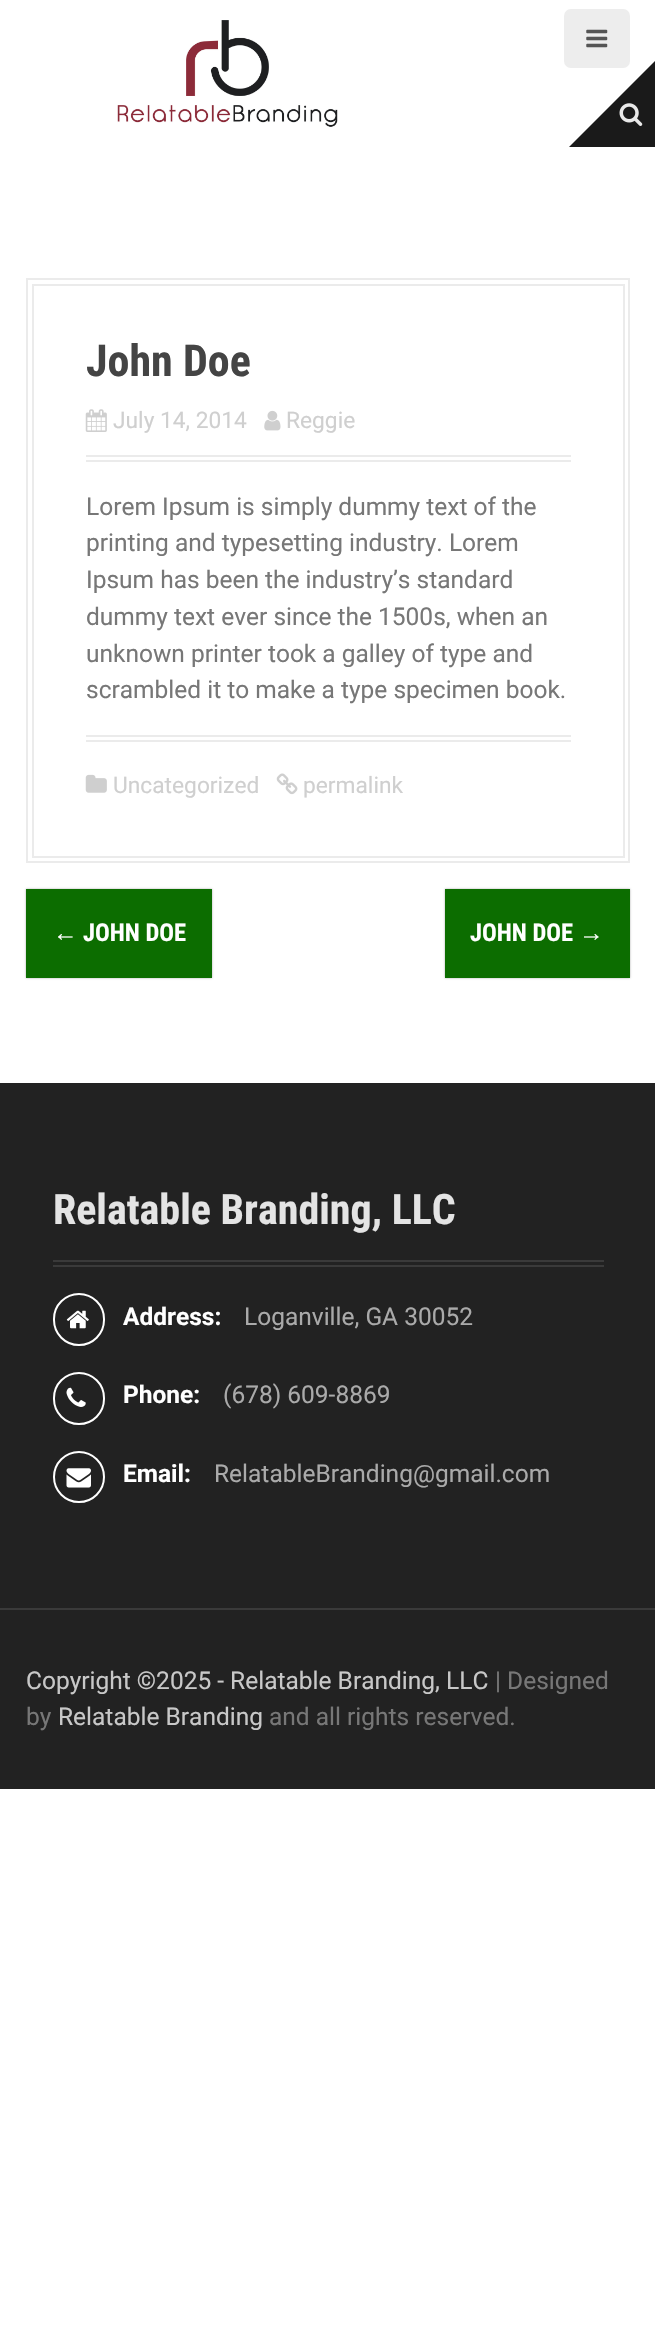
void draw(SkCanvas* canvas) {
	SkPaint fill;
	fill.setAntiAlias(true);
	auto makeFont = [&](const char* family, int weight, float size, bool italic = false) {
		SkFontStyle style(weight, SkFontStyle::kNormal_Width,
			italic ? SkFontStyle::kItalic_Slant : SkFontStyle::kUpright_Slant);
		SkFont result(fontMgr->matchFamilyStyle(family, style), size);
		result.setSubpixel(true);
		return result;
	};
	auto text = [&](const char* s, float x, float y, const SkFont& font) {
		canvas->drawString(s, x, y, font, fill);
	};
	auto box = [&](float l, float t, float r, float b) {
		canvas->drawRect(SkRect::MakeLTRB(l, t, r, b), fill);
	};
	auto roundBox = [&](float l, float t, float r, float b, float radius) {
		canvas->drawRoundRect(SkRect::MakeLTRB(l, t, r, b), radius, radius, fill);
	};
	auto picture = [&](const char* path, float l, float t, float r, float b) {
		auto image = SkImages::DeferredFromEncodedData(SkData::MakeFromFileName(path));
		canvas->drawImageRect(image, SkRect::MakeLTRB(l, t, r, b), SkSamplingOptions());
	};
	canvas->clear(0xFFFFFFFF);
	picture("image0.png", 117, 20, 338, 127);
	fill.setColor(0xFFEDEDED);
	roundBox(564, 9, 630, 68, 7);
	picture("image1.png", 586, 29, 608, 48);
	fill.setColor(0xFF1A1A1A);
	canvas->drawPath(SkPathBuilder().moveTo(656, 60).lineTo(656, 147).lineTo(569, 147).close().detach(), fill);
	picture("image2.png", 619, 103, 643, 126);
	fill.setStyle(SkPaint::kStroke_Style);
	fill.setStrokeWidth(2);
	fill.setColor(0xFFEBEBEB);
	canvas->drawRect(SkRect::MakeLTRB(27, 279, 629, 862), fill);
	canvas->drawRect(SkRect::MakeLTRB(33, 285, 624, 857), fill);
	fill.setStyle(SkPaint::kFill_Style);
	box(86, 455, 571, 457);
	box(86, 460, 571, 462);
	picture("image3.png", 85, 409, 107, 432);
	picture("image4.png", 264, 410, 281, 431);
	box(86, 735, 571, 737);
	box(86, 740, 571, 742);
	picture("image5.png", 85, 774, 107, 793);
	picture("image6.png", 276, 773, 298, 795);
	fill.setColor(0xFFADADAD);
	fill.setMaskFilter(SkMaskFilter::MakeBlur(kNormal_SkBlurStyle, 1));
	canvas->drawRect(SkRect::MakeLTRB(26, 889, 212, 978), fill);
	fill.setMaskFilter(nullptr);
	fill.setColor(0xFF0C6D00);
	box(26, 889, 212, 978);
	fill.setColor(0xFFADADAD);
	fill.setMaskFilter(SkMaskFilter::MakeBlur(kNormal_SkBlurStyle, 1));
	canvas->drawRect(SkRect::MakeLTRB(445, 889, 630, 978), fill);
	fill.setMaskFilter(nullptr);
	fill.setColor(0xFF0C6D00);
	box(445, 889, 630, 978);
	fill.setColor(0xFF222222);
	box(0, 1083, 655, 1608);
	fill.setColor(0xFF3A3A3A);
	box(53, 1260, 604, 1262);
	box(53, 1265, 604, 1267);
	fill.setStyle(SkPaint::kStroke_Style);
	fill.setColor(0xFFFFFFFF);
	canvas->drawRoundRect(SkRect::MakeLTRB(54, 1294, 104, 1345), 25, 25, fill);
	picture("image7.png", 66, 1310, 89, 1329);
	canvas->drawRoundRect(SkRect::MakeLTRB(54, 1373, 104, 1424), 25, 25, fill);
	picture("image8.png", 66, 1387, 86, 1407);
	canvas->drawCircle(79, 1477, 25, fill);
	picture("image9.png", 66, 1468, 91, 1488);
	fill.setStyle(SkPaint::kFill_Style);
	fill.setColor(0xFF222222);
	box(0, 1610, 655, 1789);
	fill.setColor(0xFF3A3A3A);
	box(0, 1608, 655, 1610);
	auto font1 = makeFont("Roboto Condensed", 700, 44);
	fill.setColor(0xFF444444);
	text("John Doe", 86, 376, font1);
	auto font2 = makeFont("Roboto", 400, 22.75f);
	fill.setColor(0xFFCFCFCF);
	text("July 14, 2014", 113, 428, font2);
	text("Reggie", 286, 428, font2);
	auto font3 = makeFont("Roboto", 400, 24.5f);
	fill.setColor(0xFF777777);
	text("Lorem Ipsum is simply dummy text of the", 86, 515, font3);
	text("printing and typesetting industry. Lorem", 86, 551, font3);
	text("Ipsum has been the industry’s standard", 86, 588, font3);
	text("dummy text ever since the 1500s, when an", 86, 625, font3);
	text("unknown printer took a galley of type and", 86, 662, font3);
	text("scrambled it to make a type specimen book.", 86, 698, font3);
	fill.setColor(0xFFCFCFCF);
	text("Uncategorized", 113, 793, font2);
	text("permalink", 303, 793, font2);
	auto font4 = makeFont("Liberation Sans", 700, 24.5f);
	fill.setColor(0xFFFFFFFF);
	text("←", 53, 941, font4);
	auto font5 = makeFont("Roboto Condensed", 700, 24.5f);
	text("JOHN DOE", 83, 941, font5);
	text("JOHN DOE", 470, 941, font5);
	text("→", 579, 941, font4);
	auto font6 = makeFont("Roboto Condensed", 700, 42);
	fill.setColor(0xFFE4E4E4);
	text("Relatable Branding, LLC", 53, 1224, font6);
	auto font7 = makeFont("Roboto", 700, 24.5f);
	fill.setColor(0xFFFFFFFF);
	text("Address:", 123, 1325, font7);
	fill.setColor(0xFFAAAAAA);
	text("Loganville, GA 30052", 244, 1325, font3);
	fill.setColor(0xFFFFFFFF);
	text("Phone:", 123, 1403, font7);
	fill.setColor(0xFFAAAAAA);
	text("(678) 609-8869", 223, 1403, font3);
	fill.setColor(0xFFFFFFFF);
	text("Email:", 123, 1482, font7);
	fill.setColor(0xFFAAAAAA);
	text("RelatableBranding@gmail.com", 214, 1482, font3);
	fill.setColor(0xFFC8C8C8);
	text("Copyright ©2025 - Relatable Branding, LLC", 26, 1689, font3);
	fill.setColor(0xFF777777);
	text("| Designed", 495, 1689, font3);
	text("by", 26, 1725, font3);
	fill.setColor(0xFFC8C8C8);
	text("Relatable Branding", 58, 1725, font3);
	fill.setColor(0xFF777777);
	text("and all rights reserved.", 269, 1725, font3);
}
